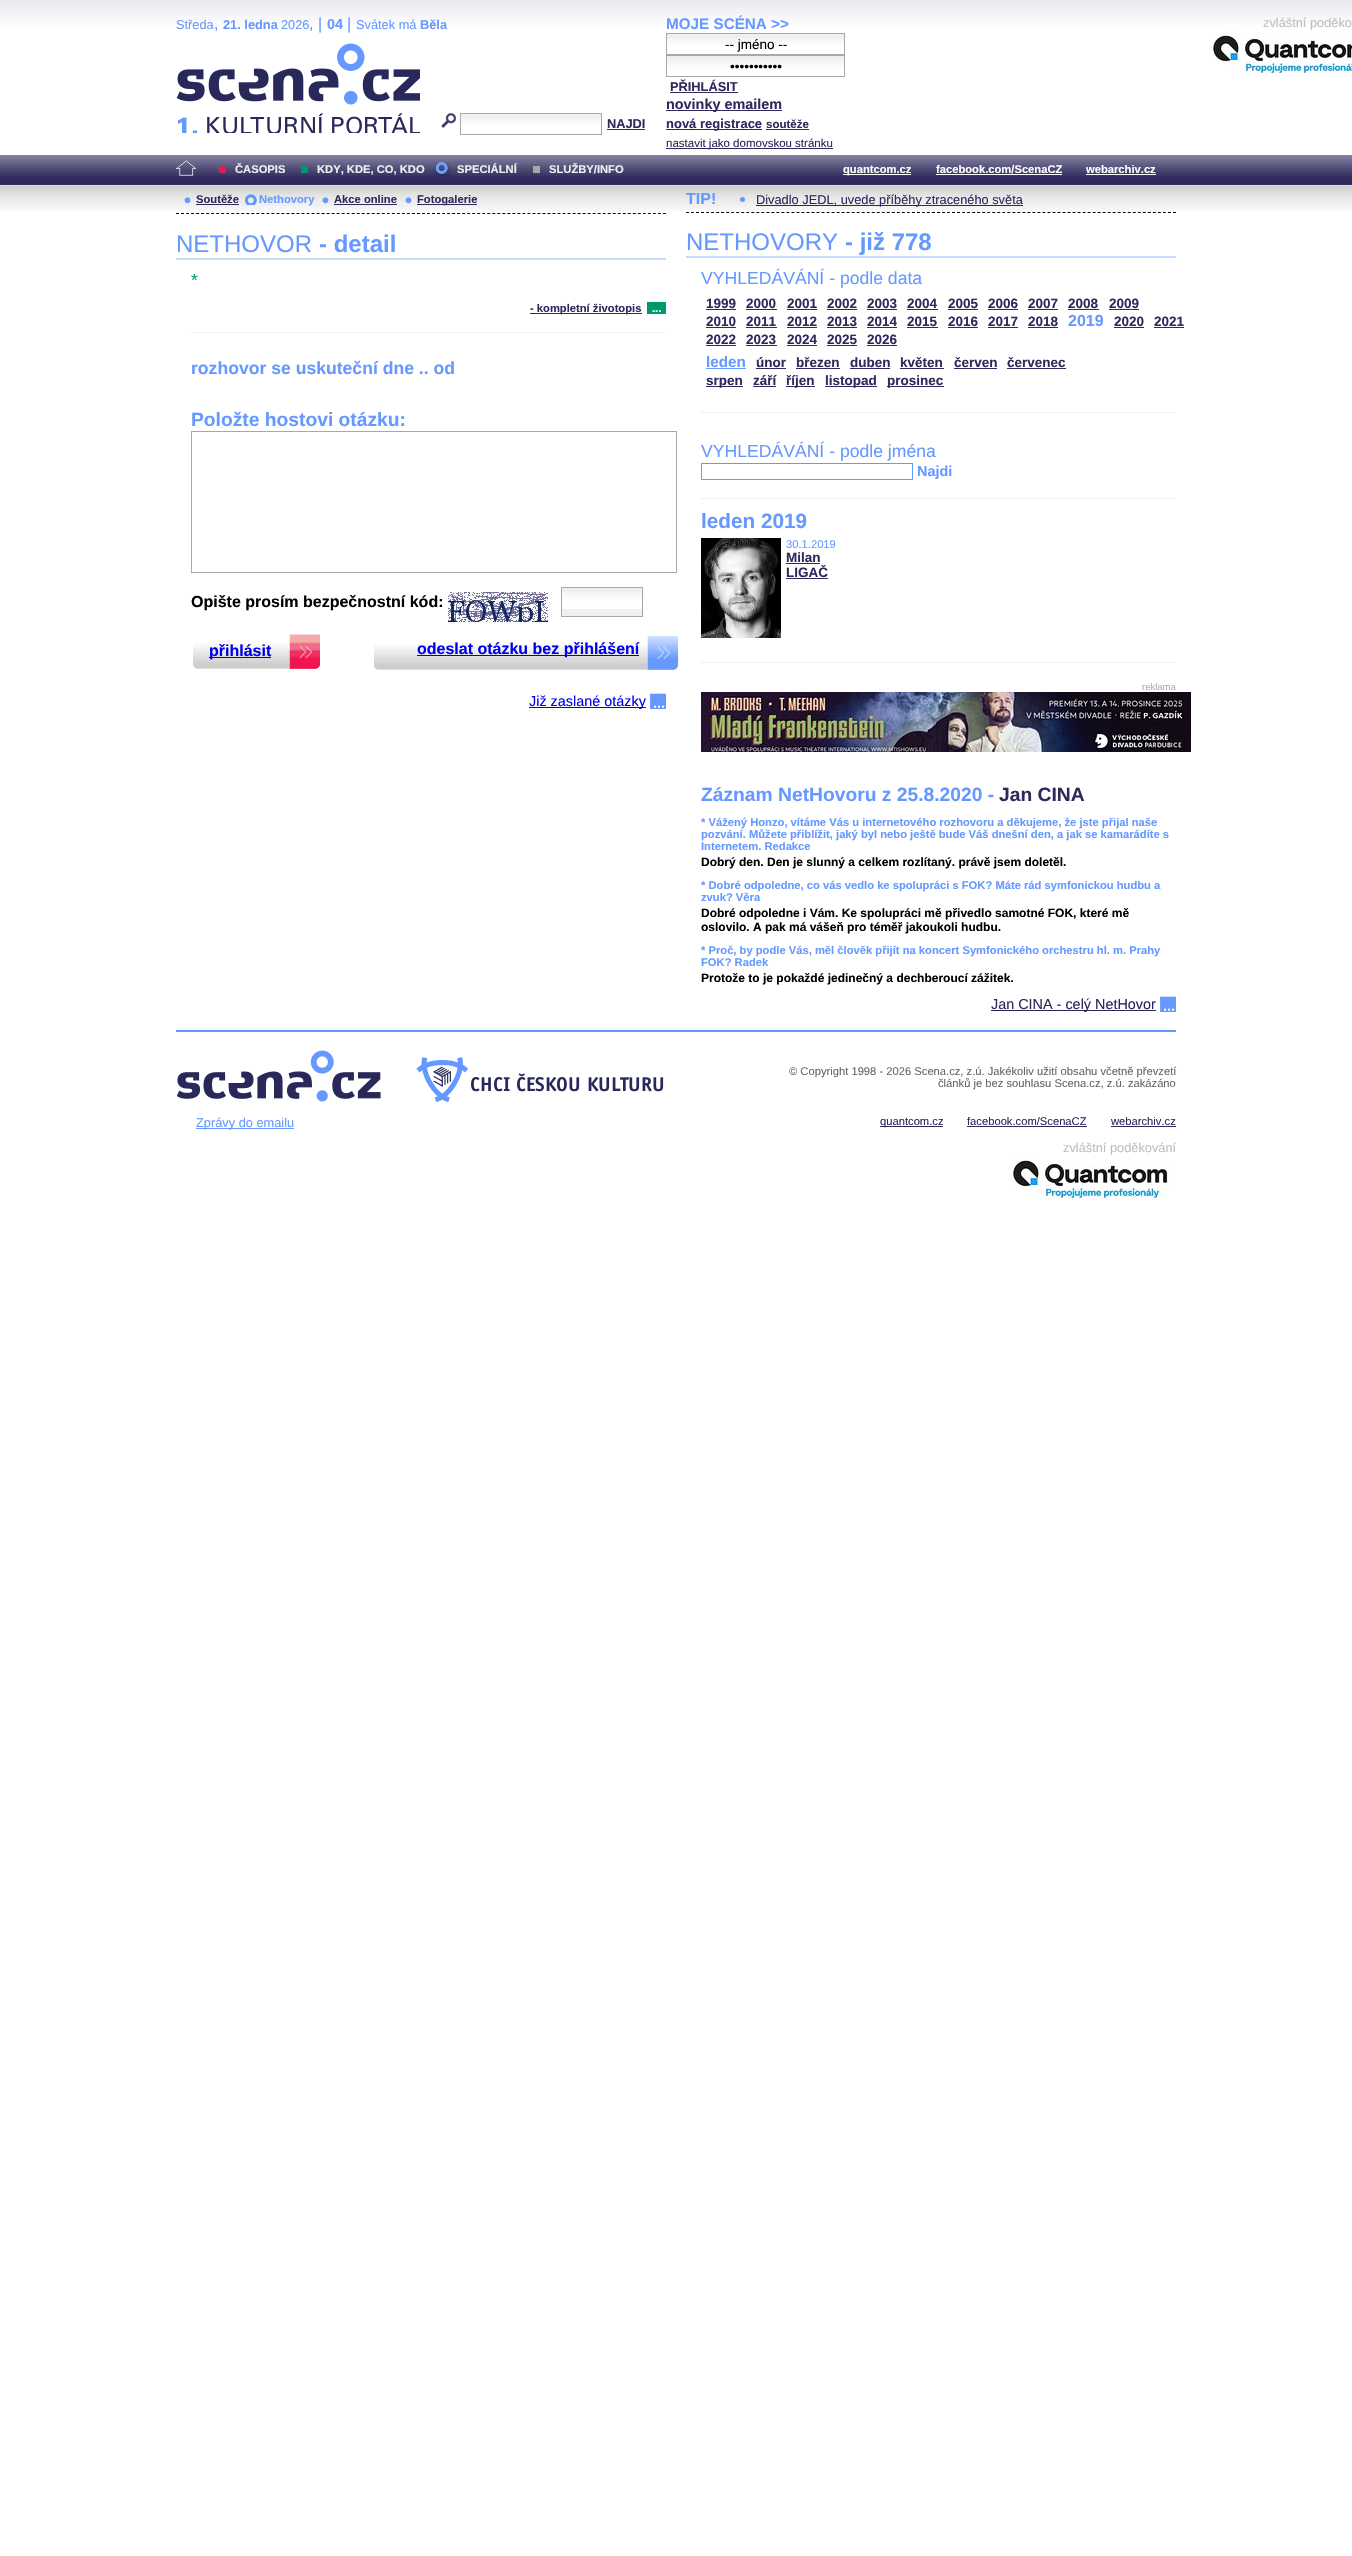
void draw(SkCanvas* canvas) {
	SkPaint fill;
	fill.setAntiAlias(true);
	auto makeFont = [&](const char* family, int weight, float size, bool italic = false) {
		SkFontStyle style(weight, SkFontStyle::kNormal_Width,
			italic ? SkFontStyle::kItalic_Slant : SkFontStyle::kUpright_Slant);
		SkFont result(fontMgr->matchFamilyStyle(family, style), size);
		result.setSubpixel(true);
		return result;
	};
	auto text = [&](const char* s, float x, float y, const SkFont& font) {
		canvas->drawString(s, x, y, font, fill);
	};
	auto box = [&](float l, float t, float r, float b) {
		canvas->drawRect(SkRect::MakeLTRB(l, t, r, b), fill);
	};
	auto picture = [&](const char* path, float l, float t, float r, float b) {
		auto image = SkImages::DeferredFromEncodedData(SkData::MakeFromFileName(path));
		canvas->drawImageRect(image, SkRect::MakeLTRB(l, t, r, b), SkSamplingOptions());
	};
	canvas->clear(0xFFFFFFFF);
	picture("image0.png", 0, 0, 1352, 212);
	picture("image1.png", 176, 43, 420, 133);
	picture("image2.png", 441, 112, 456, 128);
	fill.setColor(0xFFEFEFEE);
	box(461, 114, 601, 118);
	picture("image3.png", 461, 118, 601, 134);
	fill.setStyle(SkPaint::kStroke_Style);
	fill.setStrokeWidth(1);
	fill.setColor(0xFFA9A8A8);
	canvas->drawRect(SkRect::MakeLTRB(460.5f, 113.5f, 601.5f, 134.5f), fill);
	fill.setStyle(SkPaint::kFill_Style);
	fill.setColor(0xFF2F295C);
	box(607, 129, 645, 130);
	fill.setColor(0xFFEFEFEE);
	box(667, 34, 844, 38);
	picture("image4.png", 667, 38, 844, 54);
	fill.setStyle(SkPaint::kStroke_Style);
	fill.setColor(0xFFA9A8A8);
	canvas->drawRect(SkRect::MakeLTRB(666.5f, 33.5f, 844.5f, 54.5f), fill);
	fill.setStyle(SkPaint::kFill_Style);
	fill.setColor(0xFFEFEFEE);
	box(667, 56, 844, 60);
	picture("image4.png", 667, 60, 844, 76);
	fill.setStyle(SkPaint::kStroke_Style);
	fill.setColor(0xFFA9A8A8);
	canvas->drawRect(SkRect::MakeLTRB(666.5f, 55.5f, 844.5f, 76.5f), fill);
	fill.setStyle(SkPaint::kFill_Style);
	fill.setColor(0xFF2F295C);
	box(670, 92, 738, 93);
	box(666, 110, 782, 111);
	box(666, 129, 762, 130);
	box(766, 129, 809, 130);
	box(666, 148, 833, 149);
	picture("image5.png", 1209, 31, 1352, 75);
	picture("image6.png", 176, 160, 196, 176);
	picture("image7.png", 219, 166, 226, 173);
	fill.setColor(0xFF009770);
	box(301, 166, 308, 173);
	picture("image8.png", 433, 162, 451, 176);
	fill.setColor(0xFFA8A8A7);
	box(533, 166, 540, 173);
	fill.setColor(0xFFFFFFFF);
	box(843, 174, 911, 175);
	box(936, 174, 1062, 175);
	box(1086, 174, 1156, 175);
	fill.setStyle(SkPaint::kStroke_Style);
	fill.setColor(0xFF000000);
	fill.setPathEffect(SkDashPathEffect::Make({{3, 2.02f}}, 0));
	canvas->drawPath(SkPathBuilder().moveTo(176, 213.5f).lineTo(666, 213.5f).detach(), fill);
	fill.setPathEffect(nullptr);
	picture("image9.png", 184, 197, 191, 204);
	fill.setStyle(SkPaint::kFill_Style);
	fill.setColor(0xFF2F295C);
	box(196, 204, 239, 205);
	picture("image10.png", 244, 194, 260, 205);
	box(334, 204, 397, 205);
	picture("image9.png", 405, 197, 412, 204);
	box(417, 204, 477, 205);
	fill.setColor(0xFFC7DAFF);
	box(176, 258, 666, 260);
	fill.setColor(0xFF2F295C);
	box(530, 313, 642, 314);
	fill.setColor(0xFF00996E);
	box(647, 302, 666, 314);
	fill.setStyle(SkPaint::kStroke_Style);
	fill.setColor(0xFFE3E3ED);
	fill.setPathEffect(SkDashPathEffect::Make({{1, 1}}, 0));
	canvas->drawPath(SkPathBuilder().moveTo(191, 332.5f).lineTo(666, 332.5f).detach(), fill);
	fill.setPathEffect(nullptr);
	fill.setColor(0xFFA9A8A8);
	canvas->drawRect(SkRect::MakeLTRB(191.5f, 431.5f, 676.5f, 572.5f), fill);
	picture("image12.png", 448, 592, 548, 622);
	fill.setStyle(SkPaint::kFill_Style);
	fill.setColor(0xFFEFEFEE);
	box(562, 588, 642, 616);
	picture("image13.png", 562, 592, 642, 609);
	fill.setStyle(SkPaint::kStroke_Style);
	fill.setColor(0xFFA9A8A8);
	canvas->drawRect(SkRect::MakeLTRB(561.5f, 587.5f, 642.5f, 616.5f), fill);
	picture("image14.png", 193, 634, 320, 669);
	fill.setStyle(SkPaint::kFill_Style);
	fill.setColor(0xFF0000EE);
	box(209, 657, 271, 658);
	picture("image15.png", 374, 636, 679, 670);
	box(417, 655, 639, 656);
	picture("image16.png", 650, 693, 666, 709);
	box(529, 707, 646, 708);
	fill.setStyle(SkPaint::kStroke_Style);
	fill.setColor(0xFF000000);
	fill.setPathEffect(SkDashPathEffect::Make({{3, 2.02f}}, 0));
	canvas->drawPath(SkPathBuilder().moveTo(686, 212.5f).lineTo(1176, 212.5f).detach(), fill);
	fill.setPathEffect(nullptr);
	fill.setStyle(SkPaint::kFill_Style);
	fill.setColor(0xFF6699FF);
	canvas->drawCircle(742.5f, 199.5f, 2.5f, fill);
	fill.setColor(0xFF2F295C);
	box(756, 205, 1023, 206);
	fill.setColor(0xFFC7DAFF);
	box(686, 256, 1176, 258);
	fill.setColor(0xFF2F295C);
	box(706, 309, 736, 310);
	box(746, 309, 777, 310);
	box(787, 309, 817, 310);
	box(827, 309, 857, 310);
	box(867, 309, 897, 310);
	box(907, 309, 938, 310);
	box(948, 309, 978, 310);
	box(988, 309, 1018, 310);
	box(1028, 309, 1058, 310);
	box(1068, 309, 1099, 310);
	box(1109, 309, 1139, 310);
	box(706, 327, 736, 328);
	box(746, 327, 777, 328);
	box(787, 327, 817, 328);
	box(827, 327, 857, 328);
	box(867, 327, 897, 328);
	box(907, 327, 938, 328);
	box(948, 327, 978, 328);
	box(988, 327, 1018, 328);
	box(1028, 327, 1058, 328);
	box(1114, 327, 1144, 328);
	box(1154, 327, 1184, 328);
	box(706, 345, 736, 346);
	box(746, 345, 777, 346);
	box(787, 345, 817, 346);
	box(827, 345, 857, 346);
	box(867, 345, 897, 346);
	fill.setColor(0xFF6699FF);
	box(706, 368, 746, 369);
	fill.setColor(0xFF2F295C);
	box(756, 368, 786, 369);
	box(796, 368, 840, 369);
	box(850, 368, 890, 369);
	box(900, 368, 944, 369);
	box(954, 368, 997, 369);
	box(1007, 368, 1066, 369);
	box(706, 386, 743, 387);
	box(753, 386, 776, 387);
	box(786, 386, 815, 387);
	box(825, 386, 877, 387);
	box(887, 386, 944, 387);
	fill.setStyle(SkPaint::kStroke_Style);
	fill.setColor(0xFFE3E3ED);
	fill.setPathEffect(SkDashPathEffect::Make({{1, 1}}, 0));
	canvas->drawPath(SkPathBuilder().moveTo(701, 412.5f).lineTo(1176, 412.5f).detach(), fill);
	fill.setPathEffect(nullptr);
	fill.setColor(0xFF6699FF);
	canvas->drawRect(SkRect::MakeLTRB(701.5f, 463.5f, 912.5f, 479.5f), fill);
	fill.setColor(0xFFE3E3ED);
	fill.setPathEffect(SkDashPathEffect::Make({{1, 1}}, 0));
	canvas->drawPath(SkPathBuilder().moveTo(701, 498.5f).lineTo(1176, 498.5f).detach(), fill);
	fill.setPathEffect(nullptr);
	picture("image17.png", 701, 538, 781, 638);
	fill.setStyle(SkPaint::kFill_Style);
	fill.setColor(0xFF2F295C);
	box(786, 563, 820, 564);
	box(786, 578, 828, 579);
	fill.setStyle(SkPaint::kStroke_Style);
	fill.setColor(0xFFE3E3ED);
	fill.setPathEffect(SkDashPathEffect::Make({{1, 1}}, 0));
	canvas->drawPath(SkPathBuilder().moveTo(701, 662.5f).lineTo(1176, 662.5f).detach(), fill);
	fill.setPathEffect(nullptr);
	picture("image18.png", 701, 692, 1191, 752);
	fill.setStyle(SkPaint::kFill_Style);
	fill.setColor(0xFF28285A);
	box(991, 1010, 1156, 1011);
	picture("image16.png", 1160, 996, 1176, 1012);
	fill.setColor(0xFF6699FF);
	box(176, 1030, 1176, 1032);
	picture("image19.png", 176, 1050, 381, 1102);
	picture("image20.png", 416, 1057, 664, 1102);
	box(196, 1128, 294, 1129);
	fill.setColor(0xFF2F295C);
	box(880, 1126, 943, 1127);
	box(967, 1126, 1087, 1127);
	box(1111, 1126, 1176, 1127);
	picture("image21.png", 1009, 1156, 1174, 1200);
	auto font1 = makeFont("Liberation Sans", 400, 12.8f);
	fill.setColor(0xFF6699FF);
	text("Středa", 176, 29, font1);
	auto font2 = makeFont("Liberation Sans", 400, 16);
	text(",", 214, 29, font2);
	auto font3 = makeFont("Liberation Sans", 700, 12.8f);
	text("21. ledna", 223, 29, font3);
	text("2026", 281, 29, font1);
	text(", |", 309, 29, font2);
	auto font4 = makeFont("Liberation Sans", 700, 14.4f);
	text("04", 327, 29, font4);
	text("|", 347, 29, font2);
	text("Svátek má", 356, 29, font1);
	text("Běla", 420, 29, font3);
	fill.setColor(0xFF2F295C);
	text("NAJDI", 607, 128, font3);
	auto font5 = makeFont("Liberation Sans", 700, 15.25f);
	fill.setColor(0xFF6699FF);
	text("MOJE SCÉNA >>", 666, 29, font5);
	auto font6 = makeFont("Liberation Sans", 400, 13.5f);
	fill.setColor(0xFF000000);
	text("-- jméno --", 725, 49, font6);
	text("•••••••••••", 730, 71, font6);
	fill.setColor(0xFF2F295C);
	text("PŘIHLÁSIT", 670, 91, font3);
	text("novinky emailem", 666, 109, font4);
	auto font7 = makeFont("Liberation Sans", 700, 13);
	text("nová registrace", 666, 128, font7);
	auto font8 = makeFont("Liberation Sans", 700, 11.5f);
	text("soutěže", 766, 128, font8);
	auto font9 = makeFont("Liberation Sans", 400, 11.5f);
	text("nastavit jako domovskou stránku", 666, 147, font9);
	fill.setColor(0xFFC0C0C0);
	text("zvláštní poděko", 1263, 27, font1);
	auto font10 = makeFont("Liberation Sans", 700, 11.2f);
	fill.setColor(0xFFEEEEEE);
	text("ČASOPIS", 235, 173, font10);
	text("KDY, KDE, CO, KDO", 317, 173, font10);
	text("SPECIÁLNÍ", 457, 173, font10);
	text("SLUŽBY/INFO", 549, 173, font10);
	fill.setColor(0xFFFFFFFF);
	text("quantcom.cz", 843, 173, font10);
	text("facebook.com/ScenaCZ", 936, 173, font10);
	text("webarchiv.cz", 1086, 173, font10);
	fill.setColor(0xFF2F295C);
	text("Soutěže", 196, 203, font10);
	fill.setColor(0xFF6699FF);
	text("Nethovory", 259, 203, font10);
	picture("image11.png", 314, 197, 329, 204);
	fill.setColor(0xFF2F295C);
	text("Akce online", 334, 203, font10);
	text("Fotogalerie", 417, 203, font10);
	auto font11 = makeFont("Liberation Sans", 400, 24);
	fill.setColor(0xFF6699FF);
	text("NETHOVOR", 176, 252, font11);
	auto font12 = makeFont("Liberation Sans", 700, 24);
	text("- detail", 319, 252, font12);
	auto font13 = makeFont("Liberation Sans", 400, 17.6f);
	fill.setColor(0xFF00996E);
	text("*", 191, 286, font13);
	fill.setColor(0xFF2F295C);
	text("- kompletní životopis", 530, 312, font10);
	fill.setColor(0xFFFFFFFF);
	text("...", 652, 312, font10);
	auto font14 = makeFont("Liberation Sans", 700, 17.6f);
	fill.setColor(0xFF6699FF);
	text("rozhovor se uskuteční dne .. od", 191, 374, font14);
	auto font15 = makeFont("Liberation Sans", 700, 19.25f);
	text("Položte hostovi otázku:", 191, 426, font15);
	auto font16 = makeFont("Liberation Sans", 700, 16);
	fill.setColor(0xFF000000);
	text("Opište prosím bezpečnostní kód:", 191, 607, font16);
	fill.setColor(0xFF0000EE);
	text("přihlásit", 209, 656, font16);
	text("odeslat otázku bez přihlášení", 417, 654, font16);
	auto font17 = makeFont("Liberation Sans", 400, 14.4f);
	text("Již zaslané otázky", 529, 706, font17);
	fill.setColor(0xFF6699FF);
	text("TIP!", 686, 204, font16);
	fill.setColor(0xFF2F295C);
	text("Divadlo JEDL, uvede příběhy ztraceného světa", 756, 204, font1);
	fill.setColor(0xFF6699FF);
	text("NETHOVORY", 686, 250, font11);
	text("- již 778", 845, 250, font12);
	text("VYHLEDÁVÁNÍ - podle data", 701, 284, font13);
	auto font18 = makeFont("Liberation Sans", 700, 13.5f);
	fill.setColor(0xFF2F295C);
	text("1999", 706, 308, font18);
	text("2000", 746, 308, font18);
	text("2001", 787, 308, font18);
	text("2002", 827, 308, font18);
	text("2003", 867, 308, font18);
	text("2004", 907, 308, font18);
	text("2005", 948, 308, font18);
	text("2006", 988, 308, font18);
	text("2007", 1028, 308, font18);
	text("2008", 1068, 308, font18);
	text("2009", 1109, 308, font18);
	text("2010", 706, 326, font18);
	text("2011", 746, 326, font18);
	text("2012", 787, 326, font18);
	text("2013", 827, 326, font18);
	text("2014", 867, 326, font18);
	text("2015", 907, 326, font18);
	text("2016", 948, 326, font18);
	text("2017", 988, 326, font18);
	text("2018", 1028, 326, font18);
	fill.setColor(0xFF6699FF);
	text("2019", 1068, 326, font16);
	fill.setColor(0xFF2F295C);
	text("2020", 1114, 326, font18);
	text("2021", 1154, 326, font18);
	text("2022", 706, 344, font18);
	text("2023", 746, 344, font18);
	text("2024", 787, 344, font18);
	text("2025", 827, 344, font18);
	text("2026", 867, 344, font18);
	fill.setColor(0xFF6699FF);
	text("leden", 706, 367, font5);
	fill.setColor(0xFF2F295C);
	text("únor", 756, 367, font18);
	text("březen", 796, 367, font18);
	text("duben", 850, 367, font18);
	text("květen", 900, 367, font18);
	text("červen", 954, 367, font18);
	text("červenec", 1007, 367, font18);
	text("srpen", 706, 385, font18);
	text("září", 753, 385, font18);
	text("říjen", 786, 385, font18);
	text("listopad", 825, 385, font18);
	text("prosinec", 887, 385, font18);
	fill.setColor(0xFF6699FF);
	text("VYHLEDÁVÁNÍ - podle jména", 701, 457, font13);
	text("Najdi", 917, 476, font4);
	auto font19 = makeFont("Liberation Sans", 700, 20.75f);
	text("leden 2019", 701, 528, font19);
	auto font20 = makeFont("Liberation Sans", 400, 11.2f);
	text("30.1.2019", 786, 548, font20);
	fill.setColor(0xFF2F295C);
	text("Milan", 786, 562, font18);
	text("LIGAČ", 786, 577, font18);
	auto font21 = makeFont("Liberation Sans", 400, 9.5f);
	fill.setColor(0xFFAEADAC);
	text("reklama", 1142, 690, font21);
	fill.setColor(0xFF6699FF);
	text("Záznam NetHovoru z 25.8.2020 -", 701, 801, font15);
	fill.setColor(0xFF2F295C);
	text("Jan CINA", 999, 801, font15);
	fill.setColor(0xFF6699FF);
	text("* Vážený Honzo, vítáme Vás u internetového rozhovoru a děkujeme, že jste přijal naše", 701, 826, font10);
	text("pozvání. Můžete přiblížit, jaký byl nebo ještě bude Váš dnešní den, a jak se kamarádíte s", 701, 838, font10);
	text("Internetem. Redakce", 701, 850, font10);
	auto font22 = makeFont("Liberation Sans", 700, 12);
	fill.setColor(0xFF000000);
	text("Dobrý den. Den je slunný a celkem rozlítaný. právě jsem doletěl.", 701, 866, font22);
	fill.setColor(0xFF6699FF);
	text("* Dobré odpoledne, co vás vedlo ke spolupráci s FOK? Máte rád symfonickou hudbu a", 701, 889, font10);
	text("zvuk? Věra", 701, 901, font10);
	fill.setColor(0xFF000000);
	text("Dobré odpoledne i Vám. Ke spolupráci mě přivedlo samotné FOK, které mě", 701, 917, font22);
	text("oslovilo. A pak má vášeň pro téměř jakoukoli hudbu.", 701, 931, font22);
	fill.setColor(0xFF6699FF);
	text("* Proč, by podle Vás, měl člověk přijít na koncert Symfonického orchestru hl. m. Prahy", 701, 954, font10);
	text("FOK? Radek", 701, 966, font10);
	fill.setColor(0xFF000000);
	text("Protože to je pokaždé jedinečný a dechberoucí zážitek.", 701, 982, font22);
	fill.setColor(0xFF28285A);
	text("Jan CINA - celý NetHovor", 991, 1009, font17);
	fill.setColor(0xFF666666);
	text("© Copyright 1998 - 2026 Scena.cz, z.ú. Jakékoliv užití obsahu včetně převzetí", 789, 1075, font20);
	text("článků je bez souhlasu Scena.cz, z.ú. zakázáno", 938, 1087, font20);
	fill.setColor(0xFF6699FF);
	text("Zprávy do emailu", 196, 1127, font1);
	fill.setColor(0xFF2F295C);
	text("quantcom.cz", 880, 1125, font20);
	text("facebook.com/ScenaCZ", 967, 1125, font20);
	text("webarchiv.cz", 1111, 1125, font20);
	fill.setColor(0xFFC0C0C0);
	text("zvláštní poděkování", 1063, 1152, font1);
}
